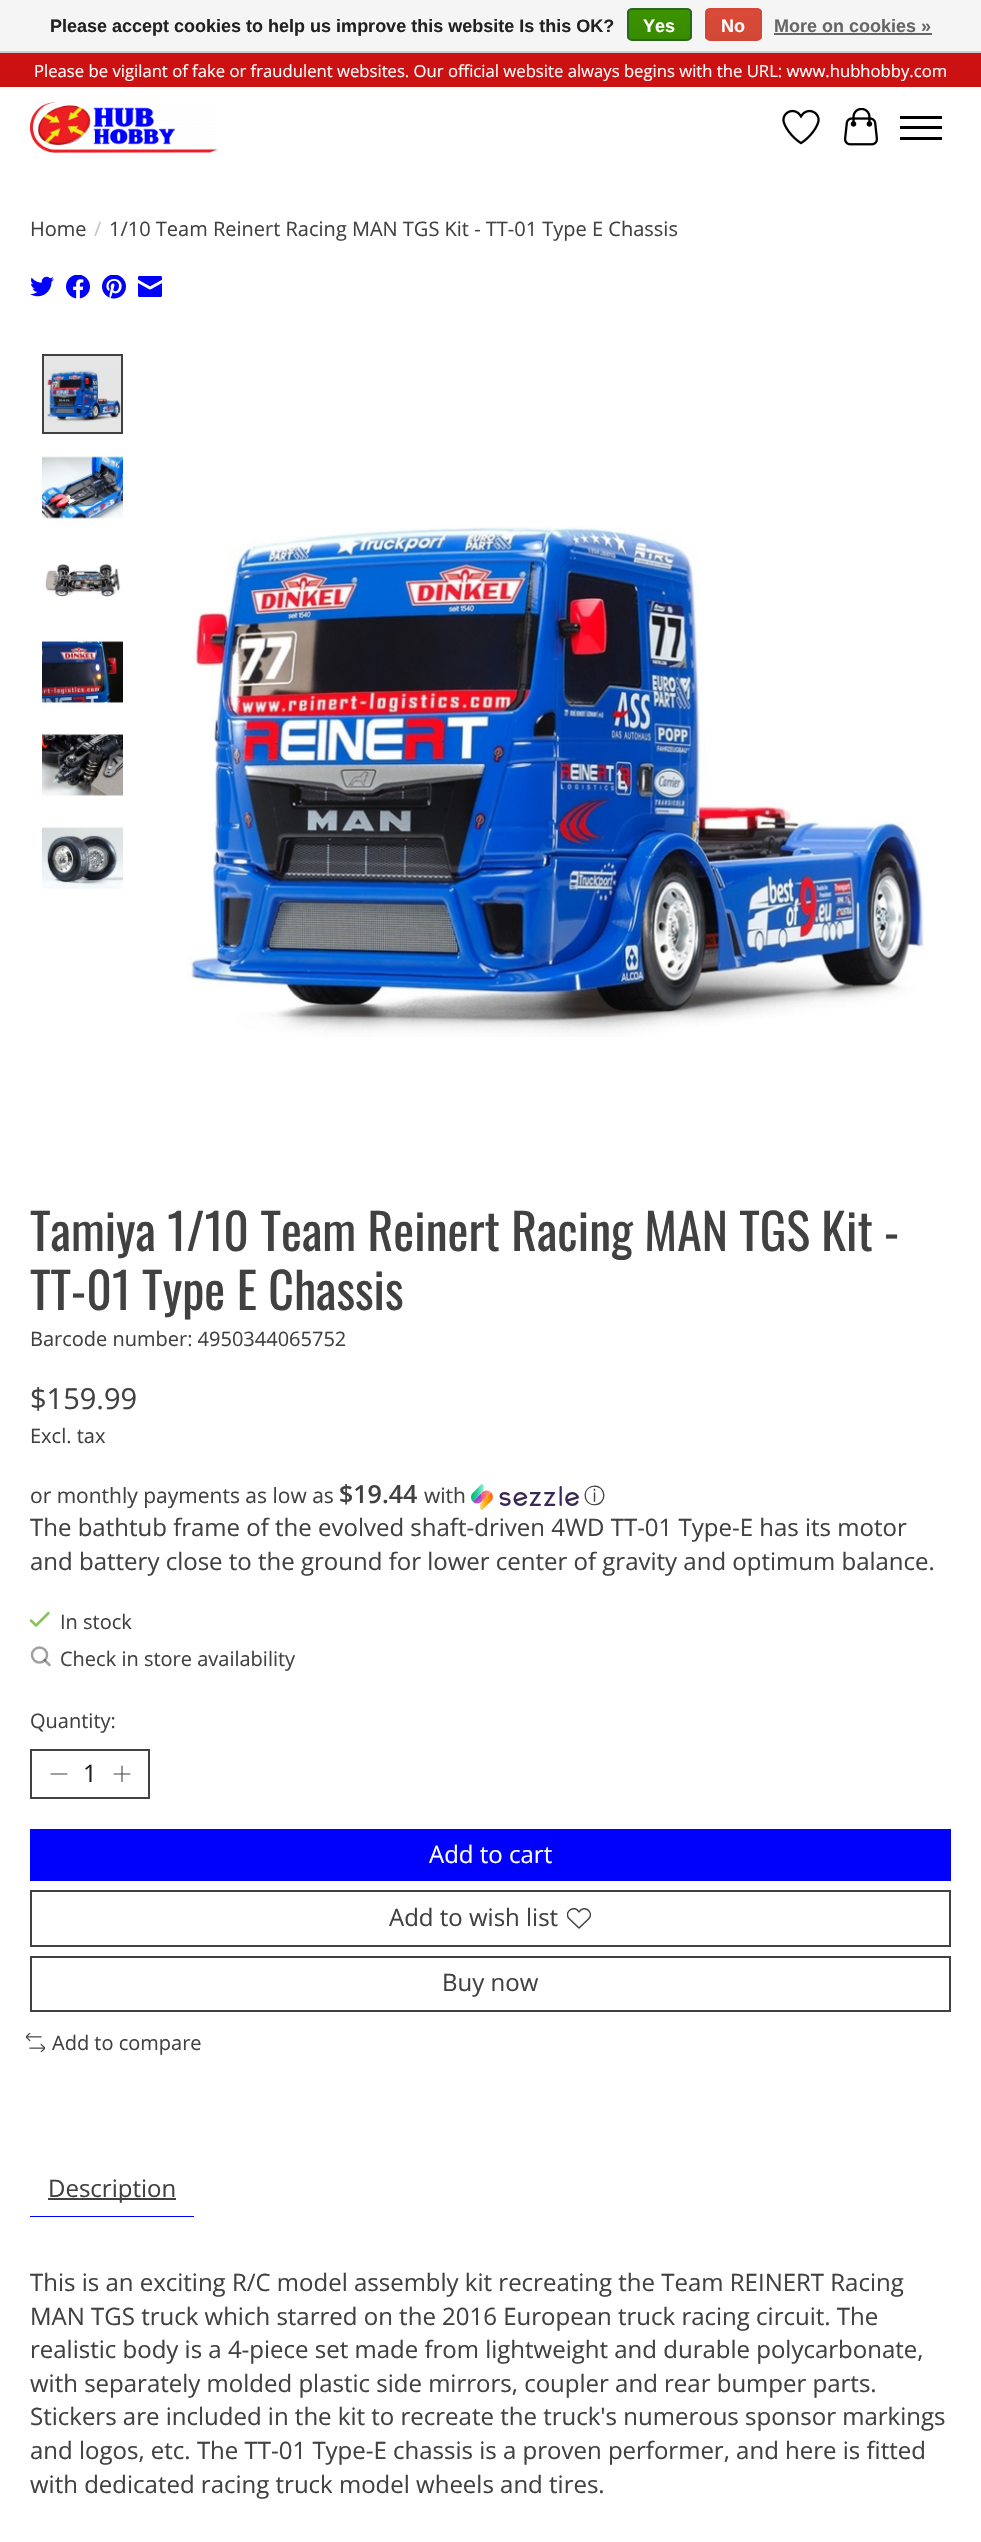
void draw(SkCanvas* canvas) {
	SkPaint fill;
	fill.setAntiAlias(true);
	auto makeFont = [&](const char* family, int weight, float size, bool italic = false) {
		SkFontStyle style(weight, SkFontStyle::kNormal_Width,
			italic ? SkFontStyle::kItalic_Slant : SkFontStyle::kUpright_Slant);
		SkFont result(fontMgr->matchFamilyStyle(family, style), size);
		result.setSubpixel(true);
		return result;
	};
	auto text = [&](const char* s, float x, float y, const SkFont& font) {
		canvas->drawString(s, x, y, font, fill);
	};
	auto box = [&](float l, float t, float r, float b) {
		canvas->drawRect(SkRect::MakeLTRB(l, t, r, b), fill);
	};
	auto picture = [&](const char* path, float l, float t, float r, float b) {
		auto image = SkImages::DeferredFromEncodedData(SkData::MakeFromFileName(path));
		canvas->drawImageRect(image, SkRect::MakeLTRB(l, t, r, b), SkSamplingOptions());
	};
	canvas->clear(0xFFFFFFFF);
	fill.setColor(0xFFE6E6E6);
	box(44, 356, 121, 432);
	fill.setColor(0xFFF5F5F5);
	box(0, 0, 981, 51);
	fill.setColor(0xFFCCCCCC);
	box(0, 51, 981, 53);
	canvas->save();
	canvas->clipPath(SkPathBuilder().moveTo(632, 8).lineTo(687, 8).cubicTo(690, 8, 692, 10, 692, 13).lineTo(692, 36).cubicTo(692, 39, 690, 41, 687, 41).lineTo(632, 41).cubicTo(629, 41, 627, 39, 627, 36).lineTo(627, 13).cubicTo(627, 10, 629, 8, 632, 8).close().detach(), true);
	{
		const SkColor colors[] = {0xFF3C9300, 0xFF398A00};
		const float stops[] = {0, 1};
		const SkPoint ends[] = {{659, 9}, {659, 39}};
		fill.setShader(SkGradientShader::MakeLinear(ends, colors, stops, 2, SkTileMode::kClamp));
		fill.setAlpha(255);
	}
	box(627, 9, 692, 39);
	canvas->restore();
	fill.setStyle(SkPaint::kStroke_Style);
	fill.setStrokeWidth(2);
	fill.setShader(nullptr);
	fill.setColor(0xFF29691D);
	canvas->drawRoundRect(SkRect::MakeLTRB(628, 9, 691, 40), 4, 4, fill);
	canvas->save();
	canvas->clipPath(SkPathBuilder().moveTo(710, 8).lineTo(757, 8).cubicTo(760, 8, 762, 10, 762, 13).lineTo(762, 36).cubicTo(762, 39, 760, 41, 757, 41).lineTo(710, 41).cubicTo(707, 41, 705, 39, 705, 36).lineTo(705, 13).cubicTo(705, 10, 707, 8, 710, 8).close().detach(), true);
	fill.setStyle(SkPaint::kFill_Style);
	{
		const SkColor colors[] = {0xFFDC4A38, 0xFFD14836};
		const float stops[] = {0, 1};
		const SkPoint ends[] = {{734, 9}, {734, 39}};
		fill.setShader(SkGradientShader::MakeLinear(ends, colors, stops, 2, SkTileMode::kClamp));
		fill.setAlpha(255);
	}
	box(705, 9, 762, 39);
	canvas->restore();
	fill.setStyle(SkPaint::kStroke_Style);
	fill.setShader(nullptr);
	fill.setColor(0xFFD14836);
	canvas->drawRoundRect(SkRect::MakeLTRB(706, 9, 761, 40), 4, 4, fill);
	fill.setStyle(SkPaint::kFill_Style);
	fill.setColor(0xFF666666);
	box(774, 33, 932, 35);
	fill.setColor(0xFFCB1111);
	box(0, 53, 981, 87);
	picture("image0.png", 30, 102, 218, 153);
	picture("image1.png", 782, 109, 820, 145);
	picture("image2.png", 843, 108, 878, 146);
	fill.setColor(0xFF000000);
	box(900, 126, 942, 129);
	box(900, 116, 942, 119);
	box(900, 137, 942, 140);
	picture("image3.png", 30, 276, 54, 297);
	picture("image4.png", 66, 275, 90, 299);
	picture("image5.png", 102, 275, 126, 299);
	picture("image6.png", 138, 276, 162, 297);
	picture("image7.png", 44, 369, 121, 423);
	fill.setStyle(SkPaint::kStroke_Style);
	fill.setColor(0xFF414141);
	canvas->drawRect(SkRect::MakeLTRB(43, 355, 122, 433), fill);
	picture("image8.png", 42, 455, 123, 524);
	picture("image9.png", 45, 563, 121, 597);
	picture("image10.png", 42, 639, 123, 709);
	picture("image11.png", 42, 732, 123, 797);
	picture("image12.png", 42, 827, 123, 889);
	picture("image13.png", 186, 526, 925, 1037);
	picture("image14.png", 471, 1484, 579, 1511);
	fill.setStrokeWidth(2.5f);
	fill.setStrokeCap(SkPaint::kRound_Cap);
	fill.setStrokeJoin(SkPaint::kRound_Join);
	fill.setColor(0xFF88C559);
	canvas->drawPath(SkPathBuilder().moveTo(31, 1620.5f).lineTo(36, 1625.5f).lineTo(48.5f, 1613).detach(), fill);
	fill.setStrokeCap(SkPaint::kButt_Cap);
	fill.setStrokeJoin(SkPaint::kMiter_Join);
	fill.setColor(0xFFA0A0A0);
	canvas->drawCircle(39.5f, 1655, 7.5f, fill);
	fill.setStrokeCap(SkPaint::kRound_Cap);
	fill.setStrokeJoin(SkPaint::kRound_Join);
	fill.setColor(0x80414141);
	canvas->drawPath(SkPathBuilder().moveTo(49.5f, 1665).lineTo(44.5f, 1660).detach(), fill);
	fill.setStrokeWidth(2);
	fill.setStrokeCap(SkPaint::kButt_Cap);
	fill.setStrokeJoin(SkPaint::kMiter_Join);
	fill.setColor(0xFF414141);
	canvas->drawRect(SkRect::MakeLTRB(31, 1750, 149, 1798), fill);
	fill.setStrokeWidth(1.1f);
	fill.setStrokeCap(SkPaint::kRound_Cap);
	fill.setStrokeJoin(SkPaint::kRound_Join);
	canvas->drawPath(SkPathBuilder().moveTo(51, 1774).lineTo(67, 1774).detach(), fill);
	canvas->drawPath(SkPathBuilder().moveTo(122, 1766).lineTo(122, 1781.5f).moveTo(114, 1774).lineTo(130, 1774).detach(), fill);
	fill.setStyle(SkPaint::kFill_Style);
	fill.setColor(0xFF0000FD);
	box(30, 1829, 951, 1881);
	fill.setStyle(SkPaint::kStroke_Style);
	fill.setStrokeWidth(2);
	fill.setStrokeCap(SkPaint::kButt_Cap);
	fill.setStrokeJoin(SkPaint::kMiter_Join);
	fill.setColor(0xFF414141);
	canvas->drawRect(SkRect::MakeLTRB(31, 1891, 950, 1946), fill);
	canvas->save();
	canvas->clipRect(SkRect::MakeLTRB(567, 1907, 591, 1931));
	fill.setStrokeWidth(1.5f);
	fill.setStrokeCap(SkPaint::kRound_Cap);
	fill.setStrokeJoin(SkPaint::kRound_Join);
	canvas->drawPath(SkPathBuilder().moveTo(588.5f, 1910.5f).cubicTo(585.5f, 1907.5f, 581, 1908.5f, 579, 1912).cubicTo(575, 1904.5f, 564, 1911, 568.5f, 1918).lineTo(579, 1928).lineTo(588.5f, 1919).cubicTo(591, 1916.5f, 591, 1913, 588.5f, 1910.5f).close().detach(), fill);
	canvas->restore();
	fill.setStrokeWidth(2);
	fill.setStrokeCap(SkPaint::kButt_Cap);
	fill.setStrokeJoin(SkPaint::kMiter_Join);
	canvas->drawRect(SkRect::MakeLTRB(31, 1957, 950, 2011), fill);
	picture("image15.png", 26, 2033, 45, 2052);
	fill.setStyle(SkPaint::kFill_Style);
	fill.setColor(0xFF0000FD);
	box(30, 2216, 194, 2217);
	fill.setColor(0xFF414141);
	box(48, 2198, 176, 2200);
	auto font1 = makeFont("Liberation Sans", 700, 18);
	fill.setColor(0xFF222222);
	text("Please accept cookies to help us improve this website Is this OK?", 50, 32, font1);
	fill.setColor(0xFFFFFFFF);
	text("Yes", 643, 32, font1);
	text("No", 721, 32, font1);
	fill.setColor(0xFF666666);
	text("More on cookies »", 774, 32, font1);
	auto font2 = makeFont("Open Sans", 400, 16.67f);
	fill.setColor(0xFFFFFFFF);
	text("Please be vigilant of fake or fraudulent websites. Our official website always begins with the URL: www.hubhobby.com", 34, 77, font2);
	auto font3 = makeFont("Open Sans", 400, 20);
	fill.setColor(0xFF414141);
	text("Home", 30, 236, font3);
	fill.setColor(0xFFC6C6C6);
	text("/", 94, 236, font3);
	fill.setColor(0xFF414141);
	text("1/10 Team Reinert Racing MAN TGS Kit - TT-01 Type E Chassis", 109, 236, font3);
	auto font4 = makeFont("Oswald", 400, 49.75f);
	text("Tamiya 1/10 Team Reinert Racing MAN TGS Kit -", 30, 1251, font4);
	text("TT-01 Type E Chassis", 30, 1310, font4);
	text("Barcode number: 4950344065752", 30, 1346, font3);
	auto font5 = makeFont("Open Sans", 400, 29);
	text("$159.99", 30, 1409, font5);
	text("Excl. tax", 30, 1443, font3);
	auto font6 = makeFont("Open Sans", 400, 21);
	text("or monthly payments as low as", 30, 1503, font6);
	auto font7 = makeFont("Open Sans", 600, 25);
	text("$19.44", 339, 1503, font7);
	text("with", 424, 1503, font6);
	auto font8 = makeFont("WenQuanYi Zen Hei", 500, 21);
	text("ⓘ", 584, 1503, font8);
	auto font9 = makeFont("Open Sans", 400, 24);
	text("The bathtub frame of the evolved shaft-driven 4WD TT-01 Type-E has its motor", 30, 1536, font9);
	text("and battery close to the ground for lower center of gravity and optimum balance.", 30, 1570, font9);
	text("In stock", 60, 1629, font3);
	text("Check in store availability", 60, 1666, font3);
	text("Quantity:", 30, 1728, font3);
	fill.setColor(0xFF1C1C21);
	text("1", 83, 1782, font9);
	fill.setColor(0xFFFFFFFF);
	text("Add to cart", 429, 1863, font9);
	fill.setColor(0xFF414141);
	text("Add to wish list", 389, 1926, font9);
	text("Buy now", 442, 1991, font9);
	text("Add to compare", 52, 2050, font3);
	text("Description", 48, 2197, font9);
	text("This is an exciting R/C model assembly kit recreating the Team REINERT Racing", 30, 2291, font9);
	text("MAN TGS truck which starred on the 2016 European truck racing circuit. The", 30, 2325, font9);
	text("realistic body is a 4-piece set made from lightweight and durable polycarbonate,", 30, 2358, font9);
	text("with separately molded plastic side mirrors, coupler and rear bumper parts.", 30, 2392, font9);
	text("Stickers are included in the kit to recreate the truck's numerous sponsor markings", 30, 2425, font9);
	text("and logos, etc. The TT-01 Type-E chassis is a proven performer, and here is fitted", 30, 2459, font9);
	text("with dedicated racing truck model wheels and tires.", 30, 2493, font9);
}
